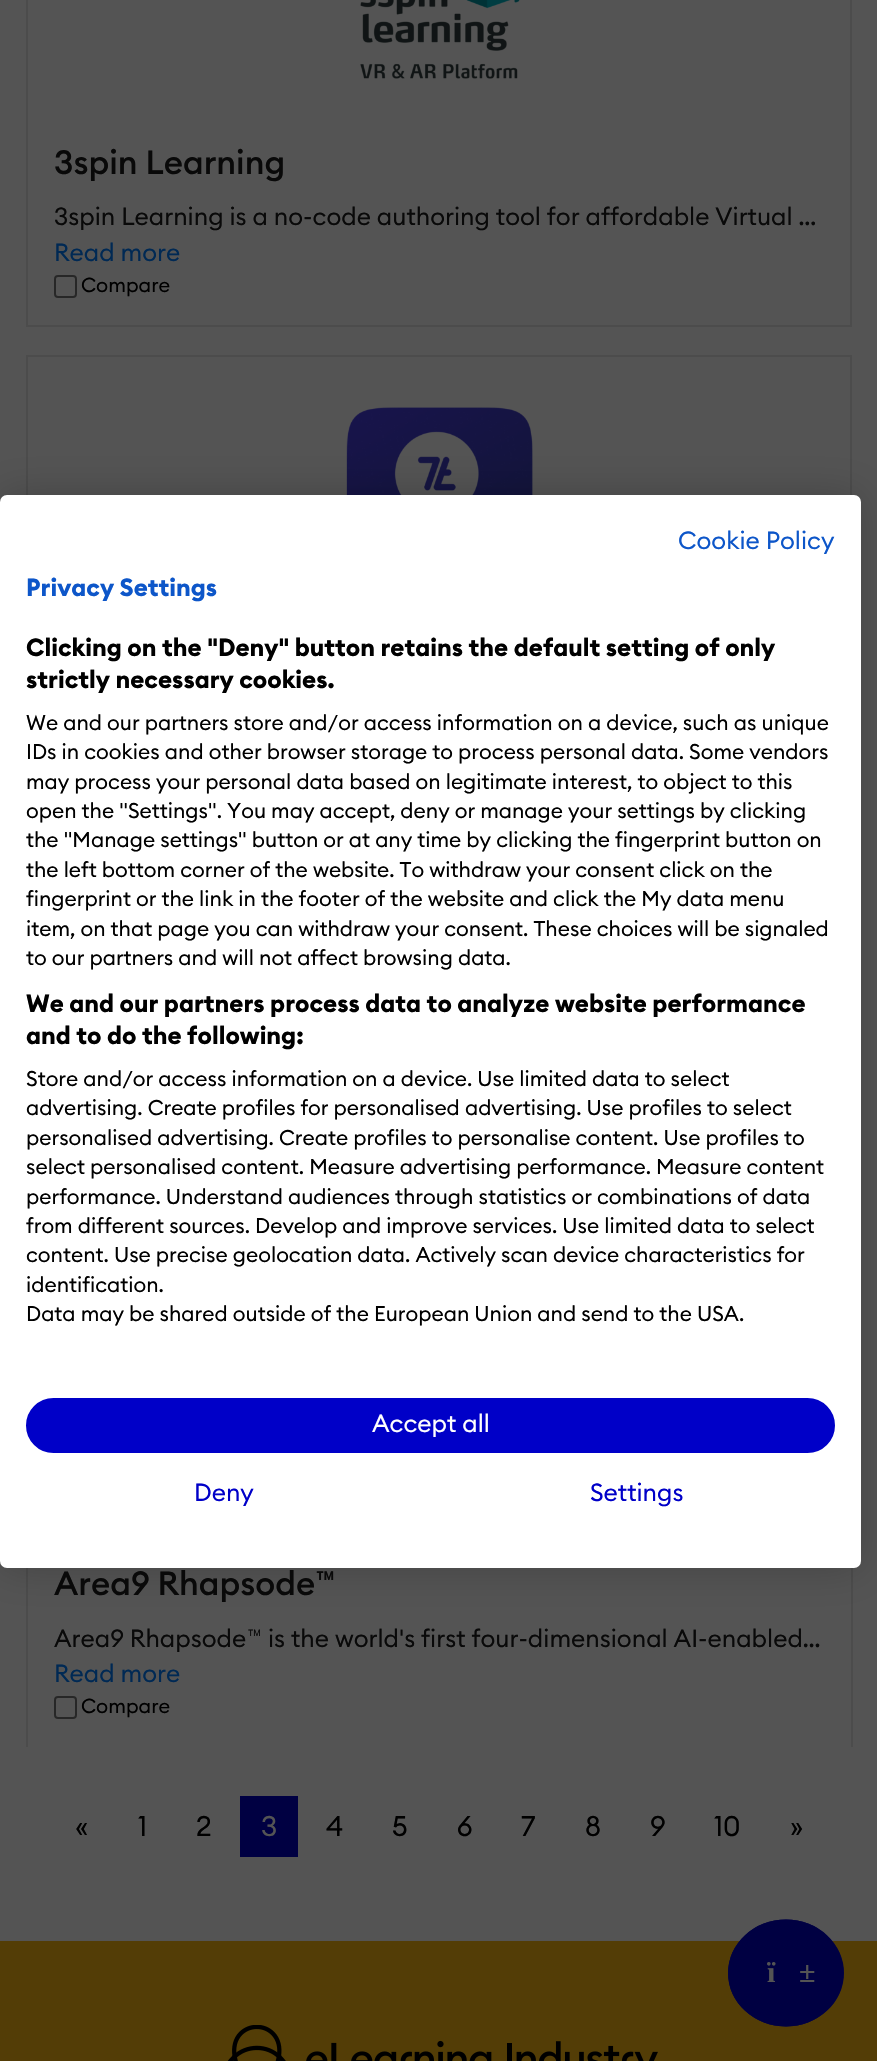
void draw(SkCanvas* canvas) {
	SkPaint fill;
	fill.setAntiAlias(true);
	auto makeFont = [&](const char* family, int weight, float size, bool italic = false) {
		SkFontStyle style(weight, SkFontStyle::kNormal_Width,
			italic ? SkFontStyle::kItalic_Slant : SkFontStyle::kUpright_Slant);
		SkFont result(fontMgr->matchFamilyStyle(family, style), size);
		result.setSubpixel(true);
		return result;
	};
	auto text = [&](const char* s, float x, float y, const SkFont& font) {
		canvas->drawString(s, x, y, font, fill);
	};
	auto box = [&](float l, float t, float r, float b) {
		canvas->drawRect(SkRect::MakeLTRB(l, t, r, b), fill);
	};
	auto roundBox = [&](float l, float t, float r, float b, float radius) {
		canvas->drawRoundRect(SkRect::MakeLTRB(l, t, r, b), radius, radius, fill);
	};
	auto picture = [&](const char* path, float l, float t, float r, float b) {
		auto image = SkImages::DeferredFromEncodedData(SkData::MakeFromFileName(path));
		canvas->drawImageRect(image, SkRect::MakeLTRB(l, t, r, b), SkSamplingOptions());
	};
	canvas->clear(0xFF545454);
	fill.setStyle(SkPaint::kStroke_Style);
	fill.setStrokeWidth(2);
	fill.setColor(0xFF4C4C4C);
	canvas->drawRect(SkRect::MakeLTRB(27, -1, 851, 326), fill);
	picture("image0.png", 360, 0, 520, 79);
	fill.setColor(0xFF272727);
	canvas->drawRoundRect(SkRect::MakeLTRB(55, 276, 76, 297), 3, 3, fill);
	fill.setColor(0xFF4C4C4C);
	canvas->drawRect(SkRect::MakeLTRB(27, 356, 851, 801), fill);
	picture("image1.png", 346, 407, 533, 495);
	fill.setStyle(SkPaint::kFill_Style);
	box(851, 1568, 853, 1747);
	box(26, 1568, 28, 1747);
	fill.setStyle(SkPaint::kStroke_Style);
	fill.setColor(0xFF272727);
	canvas->drawRoundRect(SkRect::MakeLTRB(55, 1697, 76, 1718), 3, 3, fill);
	fill.setStyle(SkPaint::kFill_Style);
	fill.setColor(0xFF000042);
	box(240, 1796, 298, 1857);
	fill.setColor(0xFF533D06);
	box(0, 1941, 877, 2061);
	fill.setColor(0xFF000042);
	canvas->drawOval(SkRect::MakeLTRB(728, 1919.5f, 844, 2026.5f), fill);
	fill.setStyle(SkPaint::kStroke_Style);
	fill.setStrokeWidth(1.8f);
	canvas->drawPath(SkPathBuilder().moveTo(786, 1920.5f).cubicTo(817, 1920.5f, 842.5f, 1944, 842.5f, 1973).cubicTo(842.5f, 2002, 817, 2025.5f, 786, 2025.5f).cubicTo(754.5f, 2025.5f, 729, 2002, 729, 1973).cubicTo(729, 1944, 754.5f, 1920.5f, 786, 1920.5f).close().detach(), fill);
	picture("image2.png", 227, 2025, 658, 2061);
	fill.setStyle(SkPaint::kFill_Style);
	fill.setColor(0x33000000);
	fill.setMaskFilter(SkMaskFilter::MakeBlur(kNormal_SkBlurStyle, 21));
	canvas->drawRoundRect(SkRect::MakeLTRB(0, 495, 861, 1568), 7, 7, fill);
	fill.setMaskFilter(nullptr);
	fill.setColor(0xFFFFFFFF);
	roundBox(0, 495, 861, 1568, 7);
	fill.setColor(0xFF0000C8);
	canvas->drawRoundRect(SkRect::MakeLTRB(27, 1399, 834, 1452), 26.5f, 26.5f, fill);
	fill.setStyle(SkPaint::kStroke_Style);
	fill.setStrokeWidth(2);
	canvas->drawRoundRect(SkRect::MakeLTRB(27, 1399, 834, 1452), 26.5f, 26.5f, fill);
	auto font1 = makeFont("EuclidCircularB", 500, 33.25f);
	fill.setStyle(SkPaint::kFill_Style);
	fill.setColor(0xFF090909);
	text("3spin Learning", 54, 174, font1);
	auto font2 = makeFont("EuclidCircularB", 400, 24.5f);
	text("3spin Learning is a no-code authoring tool for affordable Virtual …", 54, 225, font2);
	fill.setColor(0xFF002954);
	text("Read more", 54, 261, font2);
	auto font3 = makeFont("EuclidCircularB", 400, 20);
	fill.setColor(0xFF000000);
	text("Compare", 81, 292, font3);
	fill.setColor(0xFF090909);
	text("Area9 Rhapsode", 54, 1595, font1);
	auto font4 = makeFont("Roboto", 500, 33.25f);
	text("™", 315, 1595, font4);
	text("Area9 Rhapsode", 54, 1647, font2);
	auto font5 = makeFont("Roboto", 300, 24.5f);
	text("™", 247, 1647, font5);
	text("is the world's first four-dimensional AI-enabled…", 268, 1647, font2);
	fill.setColor(0xFF002954);
	text("Read more", 54, 1682, font2);
	fill.setColor(0xFF000000);
	text("Compare", 81, 1713, font3);
	auto font6 = makeFont("EuclidCircularB", 400, 28);
	text("«", 75, 1836, font6);
	text("1", 138, 1836, font6);
	text("2", 196, 1836, font6);
	fill.setColor(0xFF545454);
	text("3", 261, 1836, font6);
	fill.setColor(0xFF000000);
	text("4", 326, 1836, font6);
	text("5", 392, 1836, font6);
	text("6", 457, 1836, font6);
	text("7", 521, 1836, font6);
	text("8", 585, 1836, font6);
	text("9", 650, 1836, font6);
	text("10", 714, 1836, font6);
	text("»", 790, 1836, font6);
	auto font7 = makeFont("Liberation Serif", 700, 30);
	fill.setColor(0xFF545454);
	text("ï", 767, 1982, font7);
	text("±", 799, 1982, font7);
	fill.setColor(0xFF0D56C9);
	text("Cookie Policy", 678, 549, font2);
	auto font8 = makeFont("EuclidCircularB", 700, 24.5f);
	text("Privacy Settings", 26, 596, font8);
	fill.setColor(0xFF000000);
	text("Clicking on the \"Deny\" button retains the default setting of only", 26, 656, font8);
	text("strictly necessary cookies.", 26, 688, font8);
	auto font9 = makeFont("EuclidCircularB", 400, 21);
	text("We and our partners store and/or access information on a device, such as unique", 26, 730, font9);
	text("IDs in cookies and other browser storage to process personal data. Some vendors", 26, 759, font9);
	text("may process your personal data based on legitimate interest, to object to this", 26, 789, font9);
	text("open the \"Settings\". You may accept, deny or manage your settings by clicking", 26, 818, font9);
	text("the \"Manage settings\" button or at any time by clicking the fingerprint button on", 26, 847, font9);
	text("the left bottom corner of the website. To withdraw your consent click on the", 26, 877, font9);
	text("fingerprint or the link in the footer of the website and click the My data menu", 26, 906, font9);
	text("item, on that page you can withdraw your consent. These choices will be signaled", 26, 936, font9);
	text("to our partners and will not affect browsing data.", 26, 965, font9);
	text("We and our partners process data to analyze website performance", 26, 1012, font8);
	text("and to do the following:", 26, 1044, font8);
	text("Store and/or access information on a device. Use limited data to select", 26, 1086, font9);
	text("advertising. Create profiles for personalised advertising. Use profiles to select", 26, 1115, font9);
	text("personalised advertising. Create profiles to personalise content. Use profiles to", 26, 1145, font9);
	text("select personalised content. Measure advertising performance. Measure content", 26, 1174, font9);
	text("performance. Understand audiences through statistics or combinations of data", 26, 1204, font9);
	text("from different sources. Develop and improve services. Use limited data to select", 26, 1233, font9);
	text("content. Use precise geolocation data. Actively scan device characteristics for", 26, 1262, font9);
	text("identification.", 26, 1292, font9);
	text("Data may be shared outside of the European Union and send to the USA.", 26, 1321, font9);
	fill.setColor(0xFFFFFFFF);
	text("Accept all", 372, 1432, font2);
	fill.setColor(0xFF0000C8);
	text("Deny", 194, 1501, font2);
	text("Settings", 590, 1501, font2);
}
